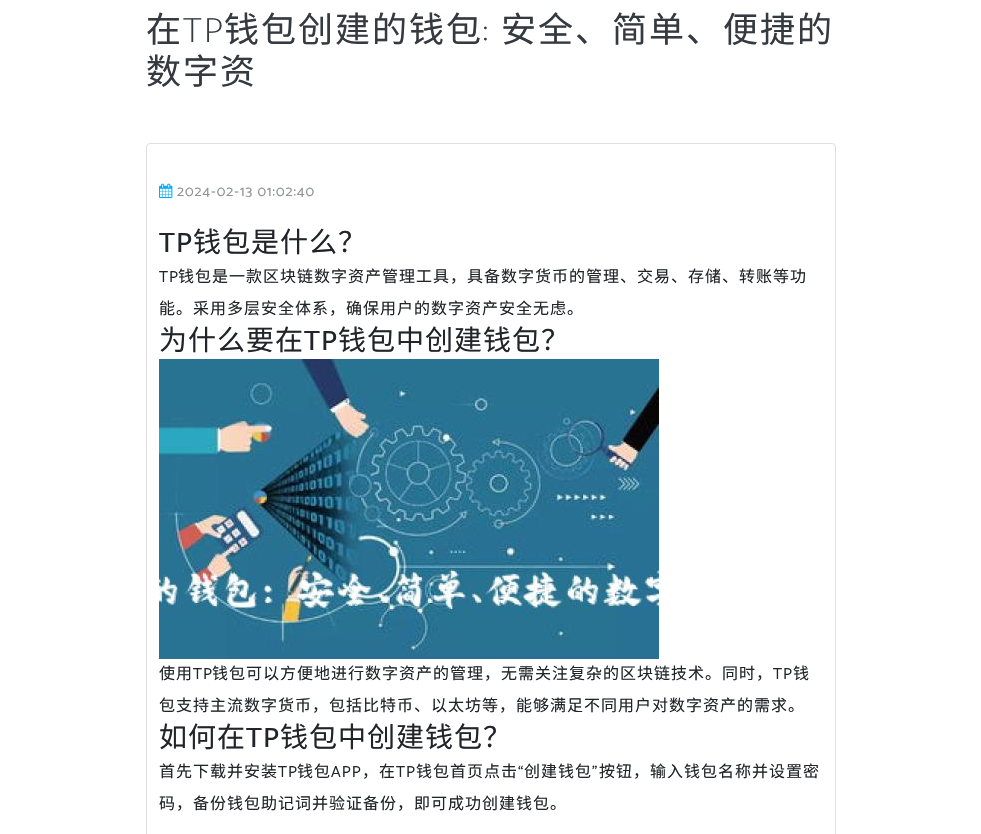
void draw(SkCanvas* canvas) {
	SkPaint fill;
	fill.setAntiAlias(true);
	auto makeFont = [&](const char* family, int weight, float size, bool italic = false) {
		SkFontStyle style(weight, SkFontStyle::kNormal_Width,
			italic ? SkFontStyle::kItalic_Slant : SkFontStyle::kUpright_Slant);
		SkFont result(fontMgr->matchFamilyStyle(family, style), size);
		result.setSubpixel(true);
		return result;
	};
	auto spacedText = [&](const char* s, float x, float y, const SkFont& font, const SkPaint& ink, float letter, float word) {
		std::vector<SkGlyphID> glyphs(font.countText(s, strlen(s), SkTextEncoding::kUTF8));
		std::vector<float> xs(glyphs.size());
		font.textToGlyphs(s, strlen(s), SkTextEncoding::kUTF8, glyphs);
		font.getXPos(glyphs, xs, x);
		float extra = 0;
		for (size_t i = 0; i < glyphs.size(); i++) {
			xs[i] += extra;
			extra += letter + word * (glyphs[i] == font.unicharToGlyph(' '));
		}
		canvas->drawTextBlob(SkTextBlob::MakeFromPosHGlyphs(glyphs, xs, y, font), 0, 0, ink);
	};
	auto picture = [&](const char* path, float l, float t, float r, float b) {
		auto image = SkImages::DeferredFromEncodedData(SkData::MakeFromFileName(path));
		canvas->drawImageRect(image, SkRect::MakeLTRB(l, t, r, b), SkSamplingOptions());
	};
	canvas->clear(0xFFFFFFFF);
	fill.setStyle(SkPaint::kStroke_Style);
	fill.setStrokeWidth(1);
	fill.setColor(0xFFDFDFDF);
	canvas->drawRoundRect(SkRect::MakeLTRB(146.5f, 143.5f, 835.5f, 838.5f), 3.5f, 3.5f, fill);
	picture("image0.png", 159, 183, 173, 199);
	picture("image1.png", 159, 359, 659, 659);
	auto font1 = makeFont("Noto Sans CJK SC", 400, 35);
	fill.setStyle(SkPaint::kFill_Style);
	fill.setColor(0xFF343A40);
	spacedText("在", 146, 42, font1, fill, 2, 0);
	auto font2 = makeFont("Catamaran", 100, 35);
	spacedText("TP", 183, 42, font2, fill, 2, 0);
	spacedText("钱包创建的钱包", 224, 42, font1, fill, 2, 0);
	spacedText(":", 483, 42, font2, fill, 2, 0);
	spacedText("安全、简单、便捷的", 501, 42, font1, fill, 2, 0);
	spacedText("数字资", 146, 84, font1, fill, 2, 0);
	auto font3 = makeFont("Catamaran", 400, 14.5f);
	fill.setColor(0xFF8C9398);
	spacedText("2024-02-13 01:02:40", 177, 196, font3, fill, 1, 0);
	auto font4 = makeFont("Catamaran", 500, 28);
	fill.setColor(0xFF212529);
	spacedText("TP", 159, 252, font4, fill, 1, 0);
	auto font5 = makeFont("Noto Sans CJK SC", 400, 28);
	spacedText("钱包是什么？", 193, 252, font5, fill, 1, 0);
	auto font6 = makeFont("Catamaran", 400, 16);
	spacedText("TP", 159, 282, font6, fill, 1, 0);
	auto font7 = makeFont("Noto Sans CJK SC", 400, 16);
	spacedText("钱包是一款区块链数字资产管理工具，具备数字货币的管理、交易、存储、转账等功", 178, 282, font7, fill, 1, 0);
	spacedText("能。采用多层安全体系，确保用户的数字资产安全无虑。", 159, 314, font7, fill, 1, 0);
	spacedText("为什么要在", 159, 350, font5, fill, 1, 0);
	spacedText("TP", 304, 350, font4, fill, 1, 0);
	spacedText("钱包中创建钱包？", 338, 350, font5, fill, 1, 0);
	spacedText("使用", 159, 679, font7, fill, 1, 0);
	spacedText("TP", 193, 679, font6, fill, 1, 0);
	spacedText("钱包可以方便地进行数字资产的管理，无需关注复杂的区块链技术。同时，", 212, 679, font7, fill, 1, 0);
	spacedText("TP", 773, 679, font6, fill, 1, 0);
	spacedText("钱", 793, 679, font7, fill, 1, 0);
	spacedText("包支持主流数字货币，包括比特币、以太坊等，能够满足不同用户对数字资产的需求。", 159, 711, font7, fill, 1, 0);
	spacedText("如何在", 159, 747, font5, fill, 1, 0);
	spacedText("TP", 246, 747, font4, fill, 1, 0);
	spacedText("钱包中创建钱包？", 280, 747, font5, fill, 1, 0);
	spacedText("首先下载并安装", 159, 777, font7, fill, 1, 0);
	spacedText("TP", 278, 777, font6, fill, 1, 0);
	spacedText("钱包", 297, 777, font7, fill, 1, 0);
	spacedText("APP", 331, 777, font6, fill, 1, 0);
	spacedText("，在", 362, 777, font7, fill, 1, 0);
	spacedText("TP", 396, 777, font6, fill, 1, 0);
	spacedText("钱包首页点击", 416, 777, font7, fill, 1, 0);
	spacedText("“", 518, 777, font6, fill, 1, 0);
	spacedText("创建钱包", 524, 777, font7, fill, 1, 0);
	spacedText("”", 592, 777, font6, fill, 1, 0);
	spacedText("按钮，输入钱包名称并设置密", 599, 777, font7, fill, 1, 0);
	spacedText("码，备份钱包助记词并验证备份，即可成功创建钱包。", 159, 809, font7, fill, 1, 0);
}
